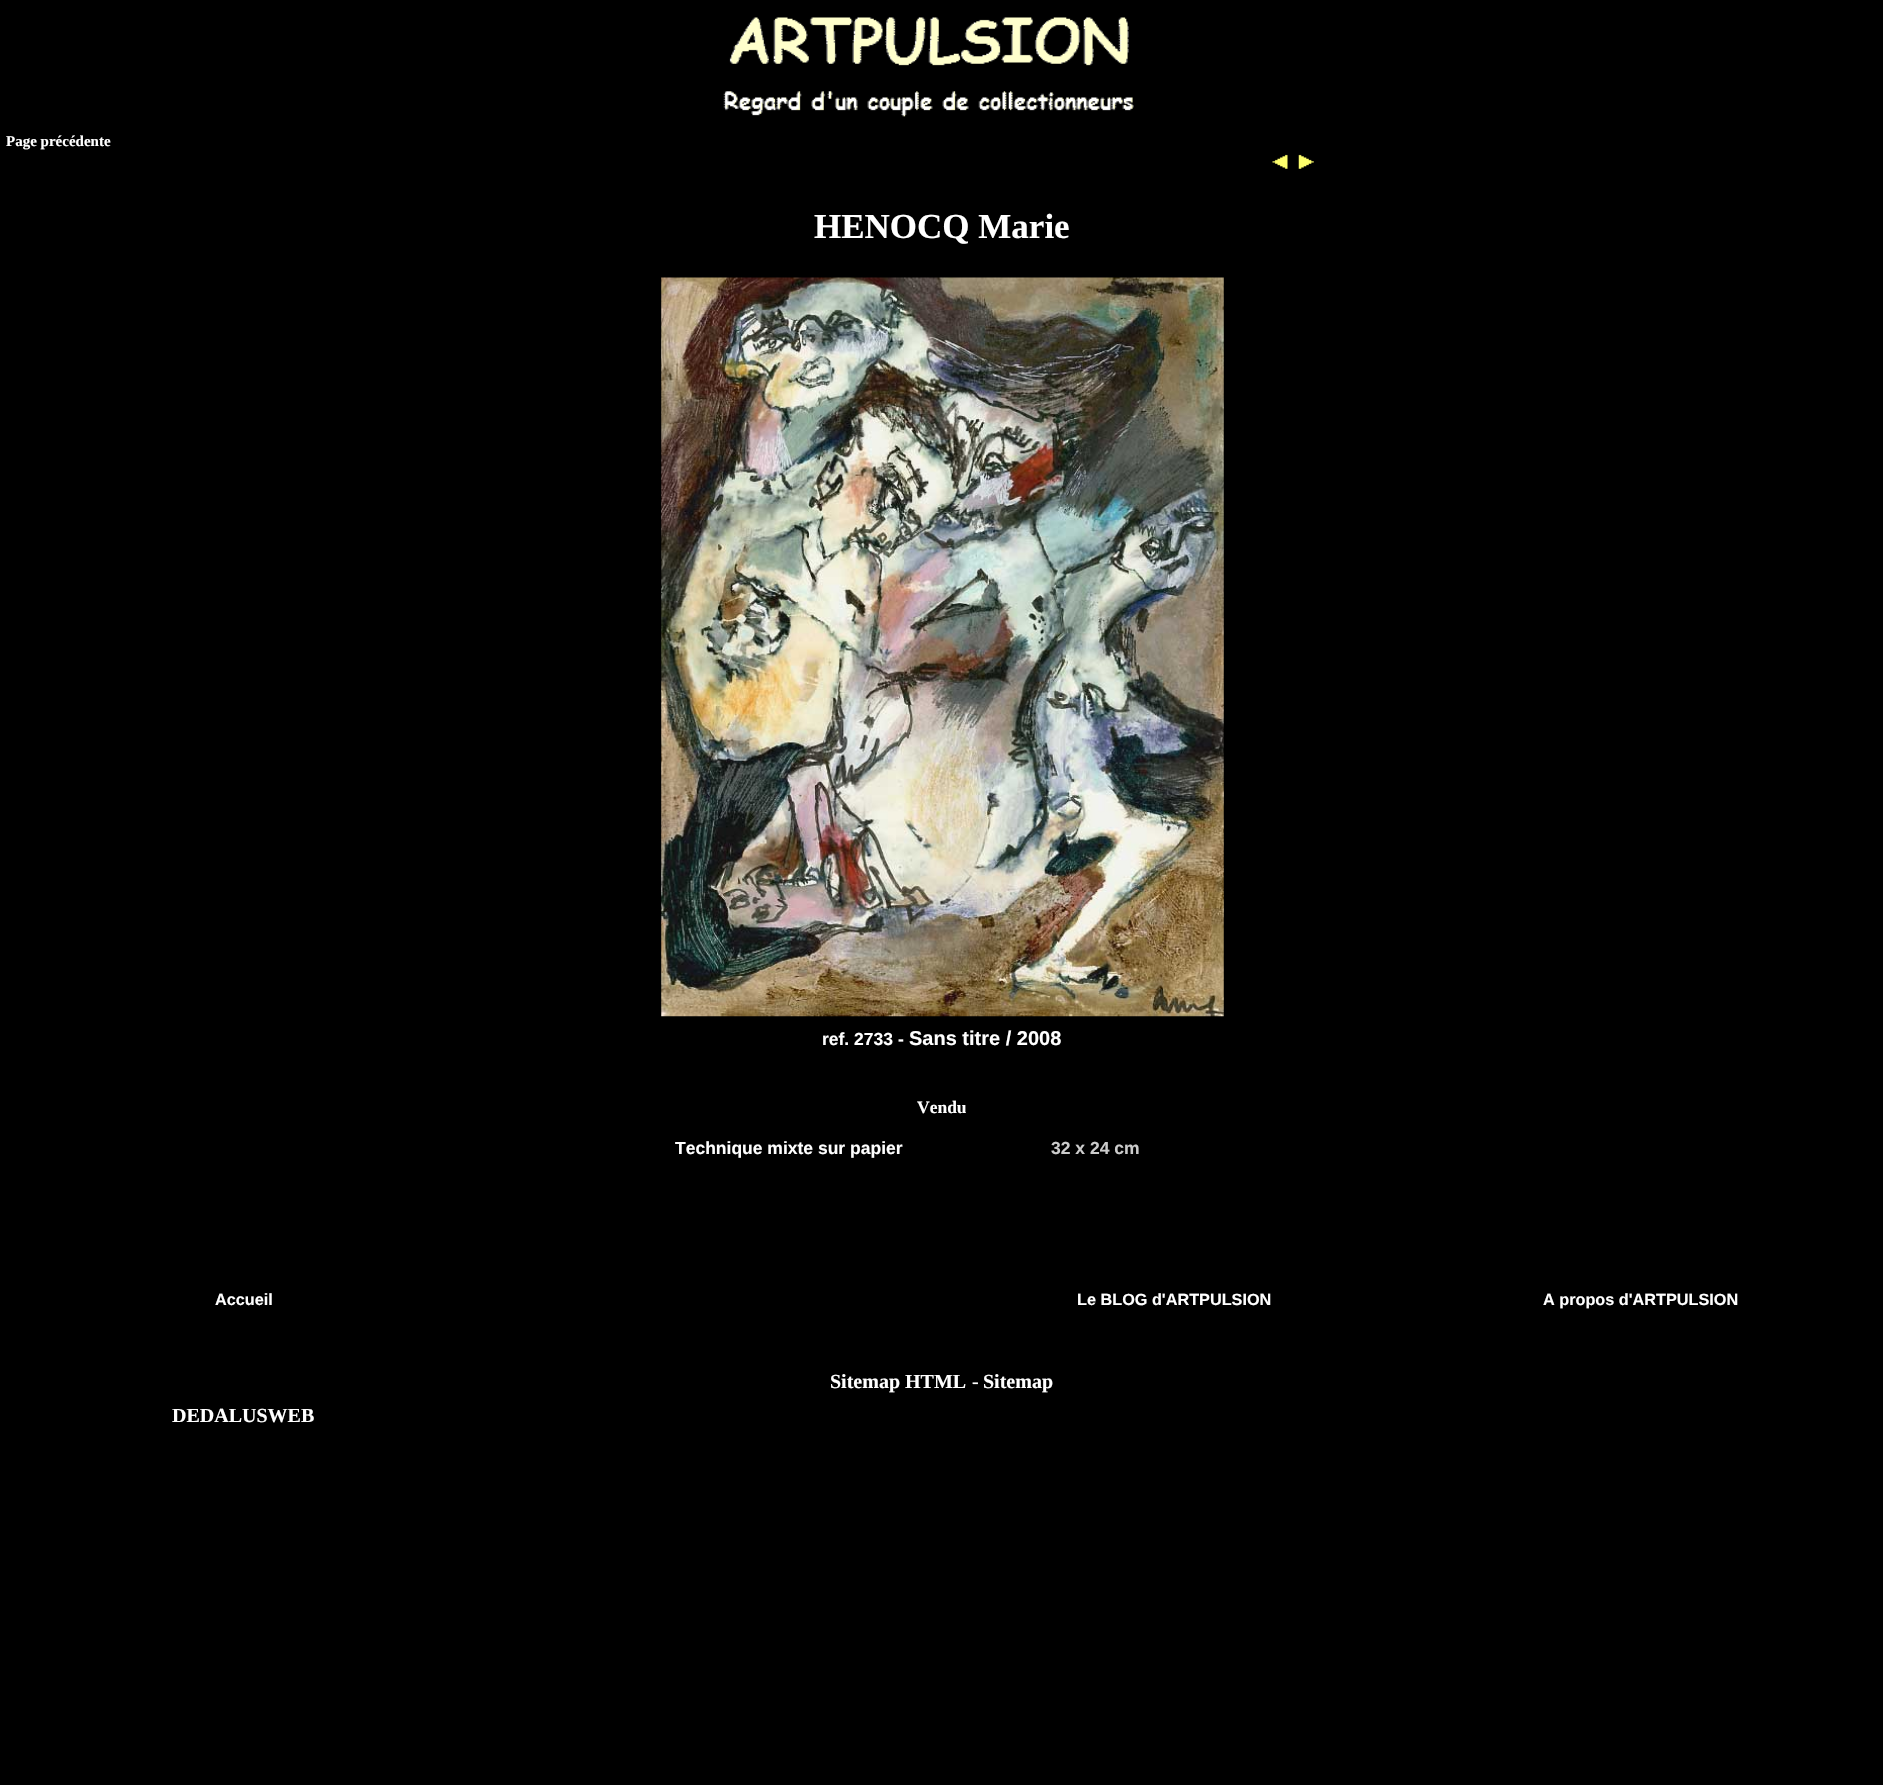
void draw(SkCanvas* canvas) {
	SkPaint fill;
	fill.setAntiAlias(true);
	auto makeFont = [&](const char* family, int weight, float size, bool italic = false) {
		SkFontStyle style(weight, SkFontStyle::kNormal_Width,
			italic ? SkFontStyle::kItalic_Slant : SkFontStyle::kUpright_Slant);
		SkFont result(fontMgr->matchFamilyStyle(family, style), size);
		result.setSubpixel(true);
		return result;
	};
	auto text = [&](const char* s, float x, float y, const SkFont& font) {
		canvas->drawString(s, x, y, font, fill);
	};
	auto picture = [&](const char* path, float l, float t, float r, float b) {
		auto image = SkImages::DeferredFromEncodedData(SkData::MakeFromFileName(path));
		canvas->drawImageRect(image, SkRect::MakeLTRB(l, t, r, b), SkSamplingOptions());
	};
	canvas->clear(0xFF000000);
	picture("image0.png", 723, 17, 1134, 117);
	picture("image1.png", 1272, 154, 1288, 169);
	picture("image2.png", 1298, 154, 1314, 169);
	picture("image3.png", 661, 277, 1224, 1017);
	auto font1 = makeFont("Liberation Serif", 700, 15);
	fill.setColor(0xFFFFFFFF);
	text("Page précédente", 6, 146, font1);
	auto font2 = makeFont("Liberation Serif", 700, 35);
	text("HENOCQ Marie", 814, 238, font2);
	auto font3 = makeFont("Liberation Sans", 700, 17.5f);
	text("ref. 2733 -", 822, 1045, font3);
	auto font4 = makeFont("Liberation Sans", 700, 20);
	text("Sans titre / 2008", 909, 1045, font4);
	auto font5 = makeFont("Liberation Serif", 700, 17.5f);
	text("Vendu", 917, 1113, font5);
	text("Technique mixte sur papier", 675, 1154, font3);
	fill.setColor(0xFFCCCCCC);
	text("32 x 24 cm", 1051, 1154, font3);
	auto font6 = makeFont("Liberation Sans", 700, 16.25f);
	fill.setColor(0xFFFFFFFF);
	text("Accueil", 215, 1305, font6);
	text("Le BLOG d'ARTPULSION", 1077, 1305, font6);
	text("A propos d'ARTPULSION", 1543, 1305, font6);
	auto font7 = makeFont("Liberation Serif", 700, 20);
	text("Sitemap HTML", 830, 1388, font7);
	auto font8 = makeFont("Liberation Serif", 400, 20);
	text("-", 972, 1388, font8);
	text("Sitemap", 983, 1388, font7);
	text("DEDALUSWEB", 172, 1422, font7);
}
